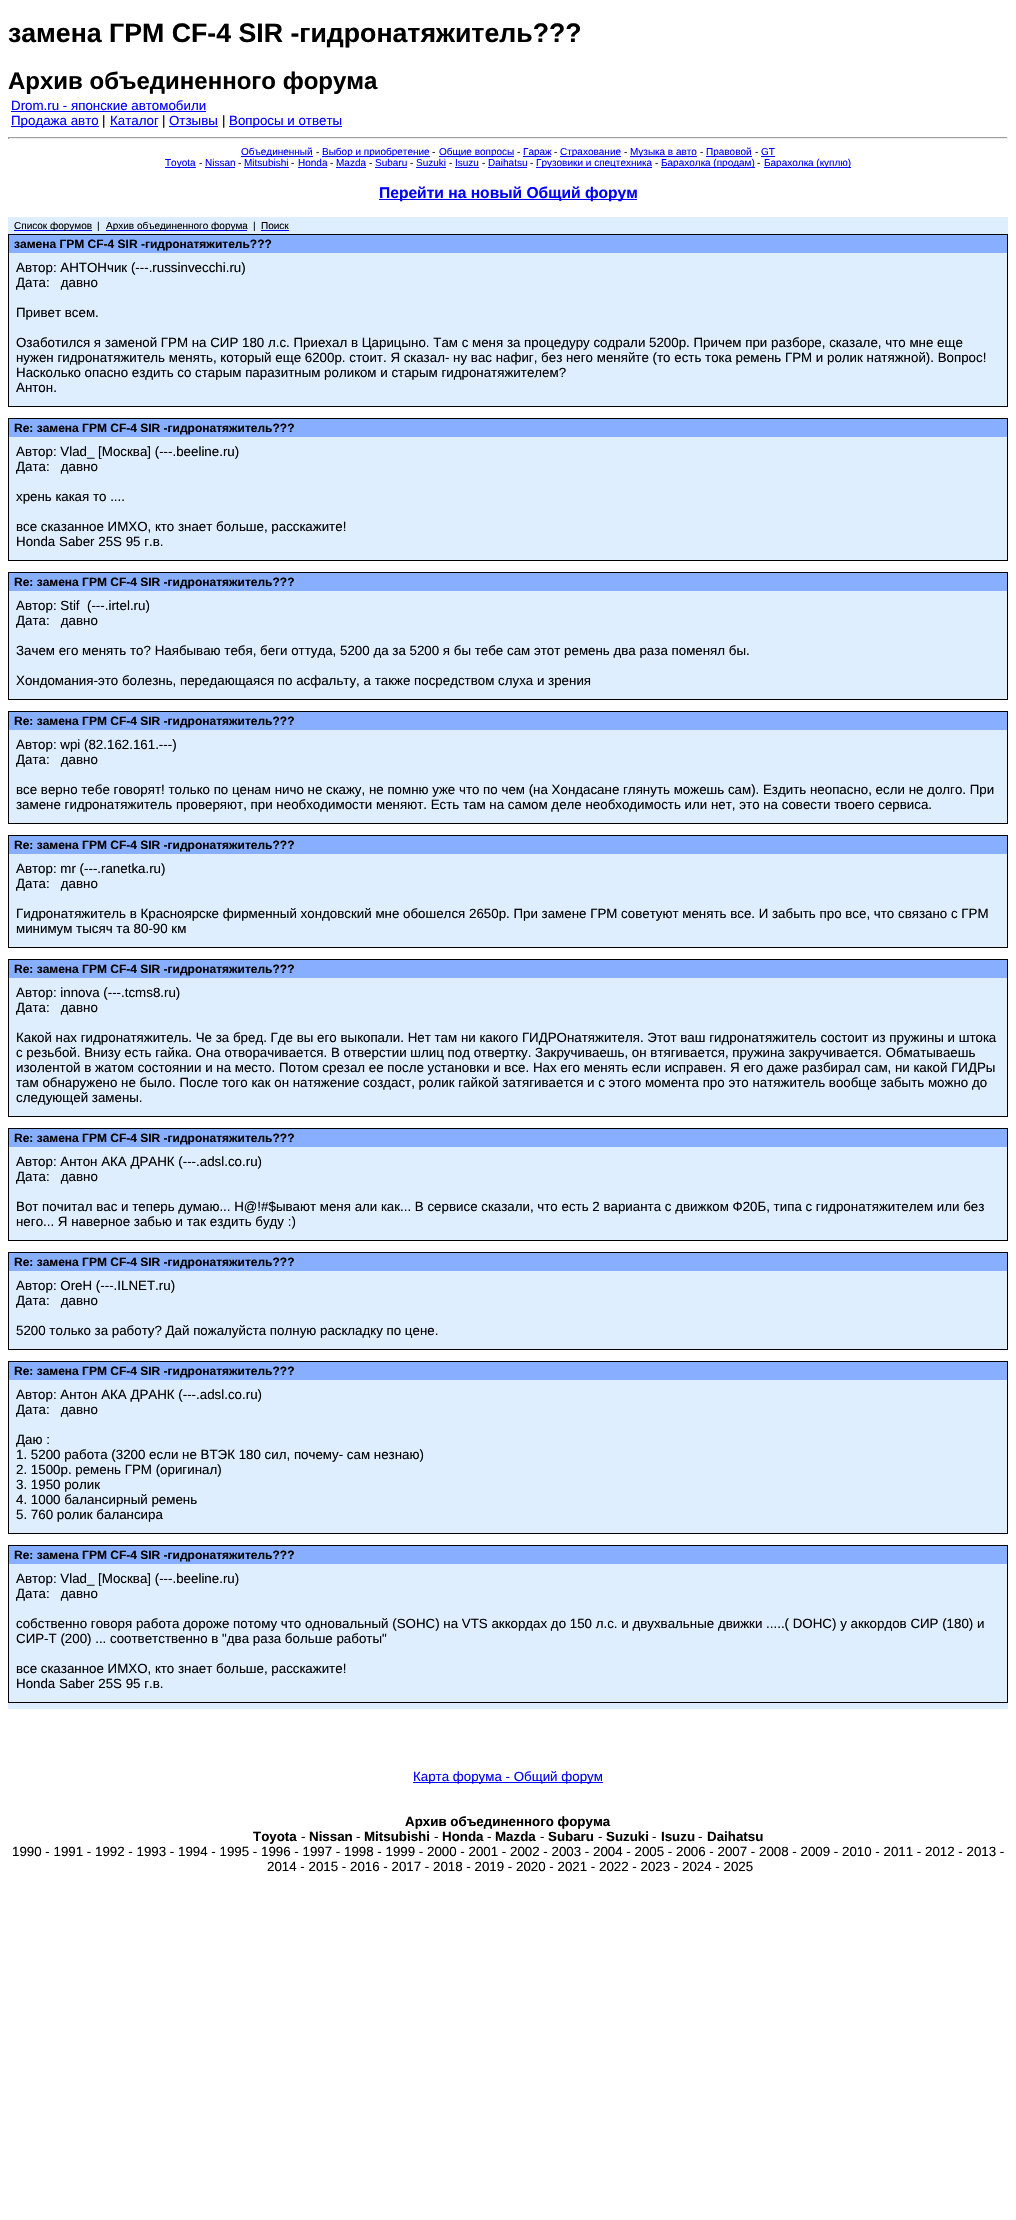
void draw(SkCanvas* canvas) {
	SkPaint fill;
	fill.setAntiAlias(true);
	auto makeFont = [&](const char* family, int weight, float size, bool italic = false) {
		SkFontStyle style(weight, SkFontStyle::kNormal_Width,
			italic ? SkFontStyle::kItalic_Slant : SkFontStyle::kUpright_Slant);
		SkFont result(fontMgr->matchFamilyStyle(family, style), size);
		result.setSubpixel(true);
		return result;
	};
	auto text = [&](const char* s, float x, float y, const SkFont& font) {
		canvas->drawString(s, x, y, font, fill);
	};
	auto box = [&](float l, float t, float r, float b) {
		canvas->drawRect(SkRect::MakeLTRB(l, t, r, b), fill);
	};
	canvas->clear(0xFFFFFFFF);
	fill.setColor(0xFF0000FF);
	box(11, 111, 206, 112);
	box(11, 126, 99, 127);
	box(110, 126, 158, 127);
	box(169, 126, 218, 127);
	box(229, 126, 342, 127);
	fill.setColor(0xFF9F9F9F);
	box(8, 137, 1008, 138);
	fill.setColor(0xFFEEEEEE);
	box(1007, 137, 1008, 139);
	box(8, 138, 1008, 139);
	fill.setColor(0xFF9F9F9F);
	box(8, 137, 9, 139);
	fill.setColor(0xFF0000FF);
	box(241, 156, 313, 157);
	box(322, 156, 430, 157);
	box(439, 156, 514, 157);
	box(523, 156, 551, 157);
	box(560, 156, 621, 157);
	box(630, 156, 697, 157);
	box(706, 156, 752, 157);
	box(761, 156, 775, 157);
	box(165, 167, 196, 168);
	box(205, 167, 235, 168);
	box(244, 167, 289, 168);
	box(298, 167, 327, 168);
	box(336, 167, 366, 168);
	box(375, 167, 407, 168);
	box(416, 167, 446, 168);
	box(455, 167, 479, 168);
	box(488, 167, 527, 168);
	box(536, 167, 652, 168);
	box(661, 167, 755, 168);
	box(764, 167, 851, 168);
	box(379, 199, 637, 200);
	fill.setColor(0xFFDFEEFF);
	box(8, 217, 1008, 234);
	fill.setColor(0xFF0000FF);
	box(14, 230, 92, 231);
	box(106, 230, 247, 231);
	box(261, 230, 289, 231);
	fill.setStyle(SkPaint::kStroke_Style);
	fill.setStrokeWidth(1);
	fill.setColor(0xFF000000);
	canvas->drawRect(SkRect::MakeLTRB(8.5f, 234.5f, 1007.5f, 406.5f), fill);
	fill.setStyle(SkPaint::kFill_Style);
	fill.setColor(0xFF88AEFF);
	box(9, 235, 1007, 253);
	fill.setColor(0xFFDFEEFF);
	box(9, 253, 1007, 406);
	fill.setStyle(SkPaint::kStroke_Style);
	fill.setColor(0xFF000000);
	canvas->drawRect(SkRect::MakeLTRB(8.5f, 418.5f, 1007.5f, 560.5f), fill);
	fill.setStyle(SkPaint::kFill_Style);
	fill.setColor(0xFF88AEFF);
	box(9, 419, 1007, 437);
	fill.setColor(0xFFDFEEFF);
	box(9, 437, 1007, 560);
	fill.setStyle(SkPaint::kStroke_Style);
	fill.setColor(0xFF000000);
	canvas->drawRect(SkRect::MakeLTRB(8.5f, 572.5f, 1007.5f, 699.5f), fill);
	fill.setStyle(SkPaint::kFill_Style);
	fill.setColor(0xFF88AEFF);
	box(9, 573, 1007, 591);
	fill.setColor(0xFFDFEEFF);
	box(9, 591, 1007, 699);
	fill.setStyle(SkPaint::kStroke_Style);
	fill.setColor(0xFF000000);
	canvas->drawRect(SkRect::MakeLTRB(8.5f, 711.5f, 1007.5f, 823.5f), fill);
	fill.setStyle(SkPaint::kFill_Style);
	fill.setColor(0xFF88AEFF);
	box(9, 712, 1007, 730);
	fill.setColor(0xFFDFEEFF);
	box(9, 730, 1007, 823);
	fill.setStyle(SkPaint::kStroke_Style);
	fill.setColor(0xFF000000);
	canvas->drawRect(SkRect::MakeLTRB(8.5f, 835.5f, 1007.5f, 947.5f), fill);
	fill.setStyle(SkPaint::kFill_Style);
	fill.setColor(0xFF88AEFF);
	box(9, 836, 1007, 854);
	fill.setColor(0xFFDFEEFF);
	box(9, 854, 1007, 947);
	fill.setStyle(SkPaint::kStroke_Style);
	fill.setColor(0xFF000000);
	canvas->drawRect(SkRect::MakeLTRB(8.5f, 959.5f, 1007.5f, 1116.5f), fill);
	fill.setStyle(SkPaint::kFill_Style);
	fill.setColor(0xFF88AEFF);
	box(9, 960, 1007, 978);
	fill.setColor(0xFFDFEEFF);
	box(9, 978, 1007, 1116);
	fill.setStyle(SkPaint::kStroke_Style);
	fill.setColor(0xFF000000);
	canvas->drawRect(SkRect::MakeLTRB(8.5f, 1128.5f, 1007.5f, 1240.5f), fill);
	fill.setStyle(SkPaint::kFill_Style);
	fill.setColor(0xFF88AEFF);
	box(9, 1129, 1007, 1147);
	fill.setColor(0xFFDFEEFF);
	box(9, 1147, 1007, 1240);
	fill.setStyle(SkPaint::kStroke_Style);
	fill.setColor(0xFF000000);
	canvas->drawRect(SkRect::MakeLTRB(8.5f, 1252.5f, 1007.5f, 1349.5f), fill);
	fill.setStyle(SkPaint::kFill_Style);
	fill.setColor(0xFF88AEFF);
	box(9, 1253, 1007, 1271);
	fill.setColor(0xFFDFEEFF);
	box(9, 1271, 1007, 1349);
	fill.setStyle(SkPaint::kStroke_Style);
	fill.setColor(0xFF000000);
	canvas->drawRect(SkRect::MakeLTRB(8.5f, 1361.5f, 1007.5f, 1533.5f), fill);
	fill.setStyle(SkPaint::kFill_Style);
	fill.setColor(0xFF88AEFF);
	box(9, 1362, 1007, 1380);
	fill.setColor(0xFFDFEEFF);
	box(9, 1380, 1007, 1533);
	fill.setStyle(SkPaint::kStroke_Style);
	fill.setColor(0xFF000000);
	canvas->drawRect(SkRect::MakeLTRB(8.5f, 1545.5f, 1007.5f, 1702.5f), fill);
	fill.setStyle(SkPaint::kFill_Style);
	fill.setColor(0xFF88AEFF);
	box(9, 1546, 1007, 1564);
	fill.setColor(0xFFDFEEFF);
	box(9, 1564, 1007, 1702);
	box(8, 1703, 1008, 1709);
	fill.setColor(0xFF0000FF);
	box(413, 1782, 603, 1783);
	auto font1 = makeFont("Liberation Sans", 700, 26.7f);
	fill.setColor(0xFF000000);
	text("замена ГРМ CF-4 SIR -гидронатяжитель?\077?", 8, 42, font1);
	auto font2 = makeFont("Liberation Sans", 700, 24);
	text("Архив объединенного форума", 8, 89, font2);
	auto font3 = makeFont("Liberation Sans", 400, 13.33f);
	fill.setColor(0xFF0000FF);
	text("Drom.ru - японские автомобили", 11, 110, font3);
	text("Продажа авто", 11, 125, font3);
	fill.setColor(0xFF000000);
	text("|", 102, 125, font3);
	fill.setColor(0xFF0000FF);
	text("Каталог", 110, 125, font3);
	fill.setColor(0xFF000000);
	text("|", 162, 125, font3);
	fill.setColor(0xFF0000FF);
	text("Отзывы", 169, 125, font3);
	fill.setColor(0xFF000000);
	text("|", 222, 125, font3);
	fill.setColor(0xFF0000FF);
	text("Вопросы и ответы", 229, 125, font3);
	auto font4 = makeFont("Liberation Sans", 400, 10);
	text("Объединенный", 241, 155, font4);
	fill.setColor(0xFF000000);
	text("-", 316, 155, font4);
	fill.setColor(0xFF0000FF);
	text("Выбор и приобретение", 322, 155, font4);
	fill.setColor(0xFF000000);
	text("-", 432, 155, font4);
	fill.setColor(0xFF0000FF);
	text("Общие вопросы", 439, 155, font4);
	fill.setColor(0xFF000000);
	text("-", 517, 155, font4);
	fill.setColor(0xFF0000FF);
	text("Гараж", 523, 155, font4);
	fill.setColor(0xFF000000);
	text("-", 554, 155, font4);
	fill.setColor(0xFF0000FF);
	text("Страхование", 560, 155, font4);
	fill.setColor(0xFF000000);
	text("-", 624, 155, font4);
	fill.setColor(0xFF0000FF);
	text("Музыка в авто", 630, 155, font4);
	fill.setColor(0xFF000000);
	text("-", 700, 155, font4);
	fill.setColor(0xFF0000FF);
	text("Правовой", 706, 155, font4);
	fill.setColor(0xFF000000);
	text("-", 755, 155, font4);
	fill.setColor(0xFF0000FF);
	text("GT", 761, 155, font4);
	text("Toyota", 165, 166, font4);
	fill.setColor(0xFF000000);
	text("-", 199, 166, font4);
	fill.setColor(0xFF0000FF);
	text("Nissan", 205, 166, font4);
	fill.setColor(0xFF000000);
	text("-", 238, 166, font4);
	fill.setColor(0xFF0000FF);
	text("Mitsubishi", 244, 166, font4);
	fill.setColor(0xFF000000);
	text("-", 291, 166, font4);
	fill.setColor(0xFF0000FF);
	text("Honda", 298, 166, font4);
	fill.setColor(0xFF000000);
	text("-", 330, 166, font4);
	fill.setColor(0xFF0000FF);
	text("Mazda", 336, 166, font4);
	fill.setColor(0xFF000000);
	text("-", 369, 166, font4);
	fill.setColor(0xFF0000FF);
	text("Subaru", 375, 166, font4);
	fill.setColor(0xFF000000);
	text("-", 410, 166, font4);
	fill.setColor(0xFF0000FF);
	text("Suzuki", 416, 166, font4);
	fill.setColor(0xFF000000);
	text("-", 449, 166, font4);
	fill.setColor(0xFF0000FF);
	text("Isuzu", 455, 166, font4);
	fill.setColor(0xFF000000);
	text("-", 482, 166, font4);
	fill.setColor(0xFF0000FF);
	text("Daihatsu", 488, 166, font4);
	fill.setColor(0xFF000000);
	text("-", 530, 166, font4);
	fill.setColor(0xFF0000FF);
	text("Грузовики и спецтехника", 536, 166, font4);
	fill.setColor(0xFF000000);
	text("-", 655, 166, font4);
	fill.setColor(0xFF0000FF);
	text("Барахолка (продам)", 661, 166, font4);
	fill.setColor(0xFF000000);
	text("-", 757, 166, font4);
	fill.setColor(0xFF0000FF);
	text("Барахолка (куплю)", 764, 166, font4);
	auto font5 = makeFont("Liberation Sans", 700, 15.6f);
	text("Перейти на новый Общий форум", 379, 198, font5);
	fill.setColor(0xFF000000);
	text("Список форумов", 14, 229, font4);
	text("|", 97, 229, font4);
	text("Архив объединенного форума", 106, 229, font4);
	text("|", 253, 229, font4);
	text("Поиск", 261, 229, font4);
	auto font6 = makeFont("Liberation Sans", 700, 12);
	text("замена ГРМ CF-4 SIR -гидронатяжитель?\077?", 14, 248, font6);
	text("Автор: АНТОНчик (---.russinvecchi.ru)", 16, 272, font3);
	text("Дата:   давно", 16, 287, font3);
	text("Привет всем.", 16, 317, font3);
	text("Озаботился я заменой ГРМ на СИР 180 л.с. Приехал в Царицыно. Там с меня за процедуру содрали 5200р. Причем при разборе, сказале, что мне еще", 16, 347, font3);
	text("нужен гидронатяжитель менять, который еще 6200р. стоит. Я сказал- ну вас нафиг, без него меняйте (то есть тока ремень ГРМ и ролик натяжной). Вопрос!", 16, 362, font3);
	text("Насколько опасно ездить со старым паразитным роликом и старым гидронатяжителем?", 16, 377, font3);
	text("Антон.", 16, 392, font3);
	text("Re: замена ГРМ CF-4 SIR -гидронатяжитель?\077?", 14, 432, font6);
	text("Автор: Vlad_ [Москва] (---.beeline.ru)", 16, 456, font3);
	text("Дата:   давно", 16, 471, font3);
	text("хрень какая то ....", 16, 501, font3);
	text("все сказанное ИМХО, кто знает больше, расскажите!", 16, 531, font3);
	text("Honda Saber 25S 95 г.в.", 16, 546, font3);
	text("Re: замена ГРМ CF-4 SIR -гидронатяжитель?\077?", 14, 586, font6);
	text("Автор: Stif  (---.irtel.ru)", 16, 610, font3);
	text("Дата:   давно", 16, 625, font3);
	text("Зачем его менять то? Наябываю тебя, беги оттуда, 5200 да за 5200 я бы тебе сам этот ремень два раза поменял бы.", 16, 655, font3);
	text("Хондомания-это болезнь, передающаяся по асфальту, а также посредством слуха и зрения", 16, 685, font3);
	text("Re: замена ГРМ CF-4 SIR -гидронатяжитель?\077?", 14, 725, font6);
	text("Автор: wpi (82.162.161.---)", 16, 749, font3);
	text("Дата:   давно", 16, 764, font3);
	text("все верно тебе говорят! только по ценам ничо не скажу, не помню уже что по чем (на Хондасане глянуть можешь сам). Ездить неопасно, если не долго. При", 16, 794, font3);
	text("замене гидронатяжитель проверяют, при необходимости меняют. Есть там на самом деле необходимость или нет, это на совести твоего сервиса.", 16, 809, font3);
	text("Re: замена ГРМ CF-4 SIR -гидронатяжитель?\077?", 14, 849, font6);
	text("Автор: mr (---.ranetka.ru)", 16, 873, font3);
	text("Дата:   давно", 16, 888, font3);
	text("Гидронатяжитель в Красноярске фирменный хондовский мне обошелся 2650р. При замене ГРМ советуют менять все. И забыть про все, что связано с ГРМ", 16, 918, font3);
	text("минимум тысяч та 80-90 км", 16, 933, font3);
	text("Re: замена ГРМ CF-4 SIR -гидронатяжитель?\077?", 14, 973, font6);
	text("Автор: innova (---.tcms8.ru)", 16, 997, font3);
	text("Дата:   давно", 16, 1012, font3);
	text("Какой нах гидронатяжитель. Че за бред. Где вы его выкопали. Нет там ни какого ГИДРОнатяжителя. Этот ваш гидронатяжитель состоит из пружины и штока", 16, 1042, font3);
	text("с резьбой. Внизу есть гайка. Она отворачивается. В отверстии шлиц под отвертку. Закручиваешь, он втягивается, пружина закручивается. Обматываешь", 16, 1057, font3);
	text("изолентой в жатом состоянии и на место. Потом срезал ее после установки и все. Нах его менять если исправен. Я его даже разбирал сам, ни какой ГИДРы", 16, 1072, font3);
	text("там обнаружено не было. После того как он натяжение создаст, ролик гайкой затягивается и с этого момента про это натяжитель вообще забыть можно до", 16, 1087, font3);
	text("следующей замены.", 16, 1102, font3);
	text("Re: замена ГРМ CF-4 SIR -гидронатяжитель?\077?", 14, 1142, font6);
	text("Автор: Антон АКА ДРАНК (---.adsl.co.ru)", 16, 1166, font3);
	text("Дата:   давно", 16, 1181, font3);
	text("Вот почитал вас и теперь думаю... Н@!#$ывают меня али как... В сервисе сказали, что есть 2 варианта с движком Ф20Б, типа с гидронатяжителем или без", 16, 1211, font3);
	text("него... Я наверное забью и так ездить буду :)", 16, 1226, font3);
	text("Re: замена ГРМ CF-4 SIR -гидронатяжитель?\077?", 14, 1266, font6);
	text("Автор: OreH (---.ILNET.ru)", 16, 1290, font3);
	text("Дата:   давно", 16, 1305, font3);
	text("5200 только за работу? Дай пожалуйста полную раскладку по цене.", 16, 1335, font3);
	text("Re: замена ГРМ CF-4 SIR -гидронатяжитель?\077?", 14, 1375, font6);
	text("Автор: Антон АКА ДРАНК (---.adsl.co.ru)", 16, 1399, font3);
	text("Дата:   давно", 16, 1414, font3);
	text("Даю :", 16, 1444, font3);
	text("1. 5200 работа (3200 если не ВТЭК 180 сил, почему- сам незнаю)", 16, 1459, font3);
	text("2. 1500р. ремень ГРМ (оригинал)", 16, 1474, font3);
	text("3. 1950 ролик", 16, 1489, font3);
	text("4. 1000 балансирный ремень", 16, 1504, font3);
	text("5. 760 ролик балансира", 16, 1519, font3);
	text("Re: замена ГРМ CF-4 SIR -гидронатяжитель?\077?", 14, 1559, font6);
	text("Автор: Vlad_ [Москва] (---.beeline.ru)", 16, 1583, font3);
	text("Дата:   давно", 16, 1598, font3);
	text("собственно говоря работа дороже потому что одновальный (SOHC) на VTS аккордах до 150 л.с. и двухвальные движки .....( DOHC) у аккордов СИР (180) и", 16, 1628, font3);
	text("СИР-Т (200) ... соответственно в \"два раза больше работы\"", 16, 1643, font3);
	text("все сказанное ИМХО, кто знает больше, расскажите!", 16, 1673, font3);
	text("Honda Saber 25S 95 г.в.", 16, 1688, font3);
	fill.setColor(0xFF0000FF);
	text("Карта форума - Общий форум", 413, 1781, font3);
	auto font7 = makeFont("Liberation Sans", 700, 13.33f);
	fill.setColor(0xFF000000);
	text("Архив объединенного форума", 405, 1826, font7);
	text("Toyota", 253, 1841, font7);
	text("-", 301, 1841, font3);
	text("Nissan", 309, 1841, font7);
	text("-", 356, 1841, font3);
	text("Mitsubishi", 364, 1841, font7);
	text("-", 434, 1841, font3);
	text("Honda", 442, 1841, font7);
	text("-", 487, 1841, font3);
	text("Mazda", 495, 1841, font7);
	text("-", 540, 1841, font3);
	text("Subaru", 548, 1841, font7);
	text("-", 598, 1841, font3);
	text("Suzuki", 606, 1841, font7);
	text("-", 652, 1841, font3);
	text("Isuzu", 661, 1841, font7);
	text("-", 698, 1841, font3);
	text("Daihatsu", 707, 1841, font7);
	text("1990 - 1991 - 1992 - 1993 - 1994 - 1995 - 1996 - 1997 - 1998 - 1999 - 2000 - 2001 - 2002 - 2003 - 2004 - 2005 - 2006 - 2007 - 2008 - 2009 - 2010 - 2011 - 2012 - 2013 -", 12, 1856, font3);
	text("2014 - 2015 - 2016 - 2017 - 2018 - 2019 - 2020 - 2021 - 2022 - 2023 - 2024 - 2025", 267, 1871, font3);
}
